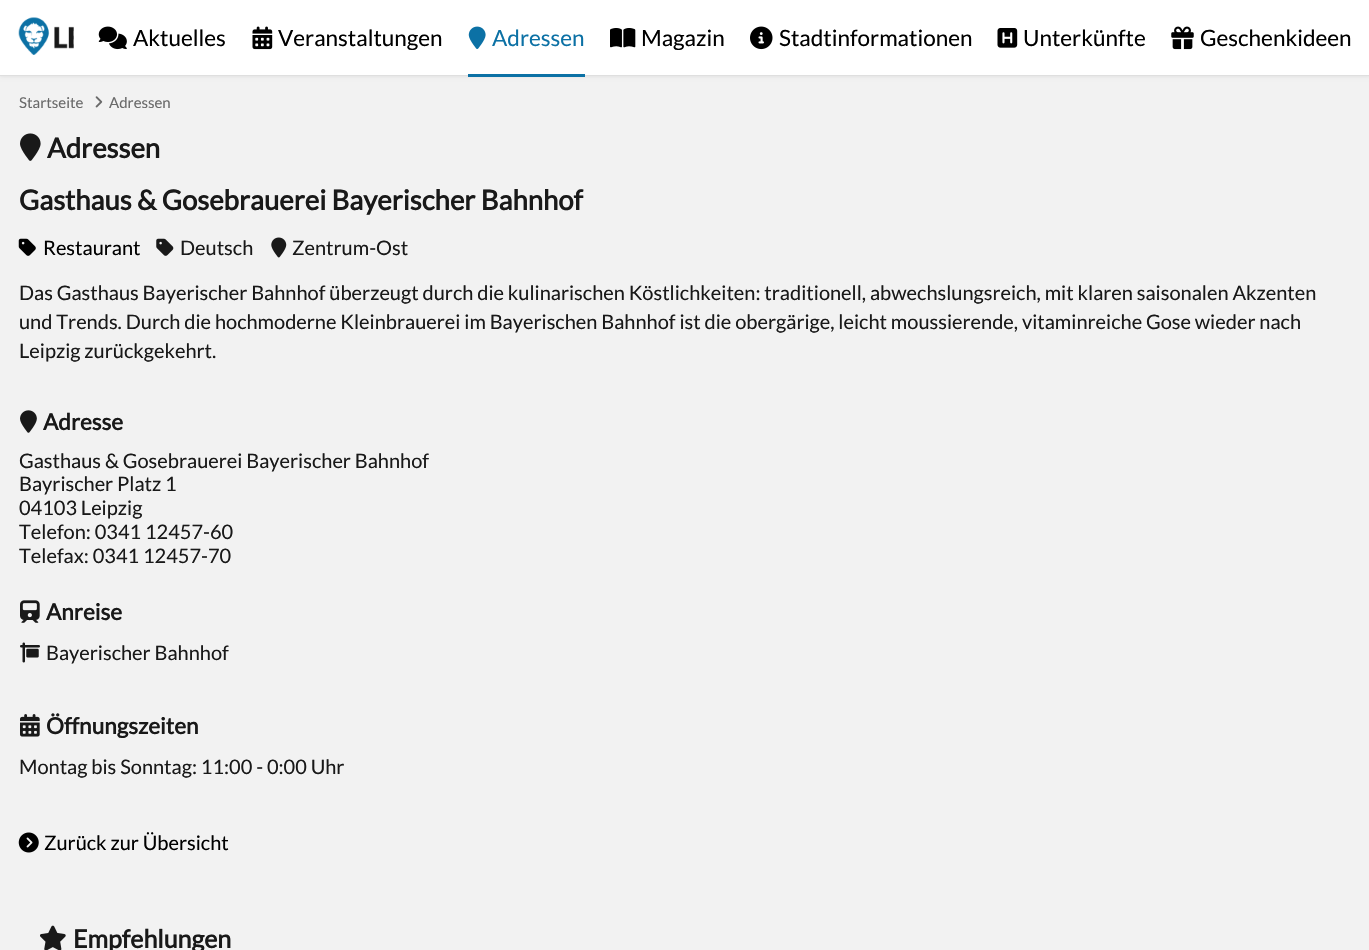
void draw(SkCanvas* canvas) {
	SkPaint fill;
	fill.setAntiAlias(true);
	auto makeFont = [&](const char* family, int weight, float size, bool italic = false) {
		SkFontStyle style(weight, SkFontStyle::kNormal_Width,
			italic ? SkFontStyle::kItalic_Slant : SkFontStyle::kUpright_Slant);
		SkFont result(fontMgr->matchFamilyStyle(family, style), size);
		result.setSubpixel(true);
		return result;
	};
	auto text = [&](const char* s, float x, float y, const SkFont& font) {
		canvas->drawString(s, x, y, font, fill);
	};
	auto box = [&](float l, float t, float r, float b) {
		canvas->drawRect(SkRect::MakeLTRB(l, t, r, b), fill);
	};
	auto picture = [&](const char* path, float l, float t, float r, float b) {
		auto image = SkImages::DeferredFromEncodedData(SkData::MakeFromFileName(path));
		canvas->drawImageRect(image, SkRect::MakeLTRB(l, t, r, b), SkSamplingOptions());
	};
	canvas->clear(0xFFF2F2F2);
	fill.setColor(0x1A000000);
	fill.setMaskFilter(SkMaskFilter::MakeBlur(kNormal_SkBlurStyle, 2));
	canvas->drawRect(SkRect::MakeLTRB(0, 0, 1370, 76), fill);
	fill.setMaskFilter(nullptr);
	fill.setColor(0xFFFFFFFF);
	box(0, 0, 1369, 75);
	fill.setColor(0xFFDFDFDF);
	box(0, 75, 1369, 76);
	picture("image0.png", 18, 17, 74, 55);
	picture("image1.png", 98, 26, 127, 50);
	picture("image2.png", 252, 26, 273, 50);
	fill.setColor(0xFF0C71A5);
	box(468, 74, 585, 77);
	picture("image3.png", 468, 26, 486, 49);
	picture("image4.png", 610, 28, 636, 48);
	picture("image5.png", 750, 26, 773, 50);
	picture("image6.png", 997, 28, 1018, 48);
	picture("image7.png", 1171, 26, 1194, 50);
	picture("image8.png", 95, 96, 103, 108);
	picture("image9.png", 20, 133, 41, 161);
	picture("image10.png", 18, 238, 36, 256);
	picture("image11.png", 156, 238, 174, 256);
	picture("image12.png", 271, 237, 287, 258);
	picture("image13.png", 20, 410, 37, 433);
	picture("image14.png", 20, 600, 40, 623);
	picture("image15.png", 20, 642, 40, 663);
	picture("image16.png", 20, 714, 40, 737);
	picture("image17.png", 18, 832, 39, 853);
	picture("image18.png", 40, 925, 66, 950);
	auto font1 = makeFont("Lato", 400, 22.5f);
	fill.setColor(0xFF000000);
	text("Aktuelles", 133, 46, font1);
	text("Veranstaltungen", 278, 46, font1);
	fill.setColor(0xFF0C71A5);
	text("Adressen", 492, 46, font1);
	fill.setColor(0xFF000000);
	text("Magazin", 641, 46, font1);
	text("Stadtinformationen", 779, 46, font1);
	text("Unterkünfte", 1023, 46, font1);
	text("Geschenkideen", 1200, 46, font1);
	auto font2 = makeFont("Lato", 400, 15);
	fill.setColor(0xFF6A6A6A);
	text("Startseite", 19, 108, font2);
	text("Adressen", 109, 108, font2);
	auto font3 = makeFont("Lato", 700, 27.5f);
	fill.setColor(0xFF191919);
	text("Adressen", 47, 158, font3);
	text("Gasthaus & Gosebrauerei Bayerischer Bahnhof", 19, 210, font3);
	auto font4 = makeFont("Lato", 400, 20);
	fill.setColor(0xFF000000);
	text("Restaurant", 43, 255, font4);
	fill.setColor(0xFF191919);
	text("Deutsch", 180, 255, font4);
	text("Zentrum-Ost", 292, 255, font4);
	text("Das Gasthaus Bayerischer Bahnhof überzeugt durch die kulinarischen Köstlichkeiten: traditionell, abwechslungsreich, mit klaren saisonalen Akzenten", 19, 300, font4);
	text("und Trends. Durch die hochmoderne Kleinbrauerei im Bayerischen Bahnhof ist die obergärige, leicht moussierende, vitaminreiche Gose wieder nach", 19, 329, font4);
	text("Leipzig zurückgekehrt.", 19, 358, font4);
	auto font5 = makeFont("Lato", 700, 22.5f);
	text("Adresse", 43, 430, font5);
	text("Gasthaus & Gosebrauerei Bayerischer Bahnhof", 19, 468, font4);
	text("Bayrischer Platz 1", 19, 491, font4);
	text("04103 Leipzig", 19, 515, font4);
	text("Telefon: 0341 12457-60", 19, 539, font4);
	text("Telefax: 0341 12457-70", 19, 563, font4);
	text("Anreise", 46, 620, font5);
	text("Bayerischer Bahnhof", 46, 660, font4);
	text("Öffnungszeiten", 46, 734, font5);
	text("Montag bis Sonntag: 11:00 - 0:00 Uhr", 19, 774, font4);
	fill.setColor(0xFF000000);
	text("Zurück zur Übersicht", 44, 850, font4);
	auto font6 = makeFont("Lato", 700, 25);
	fill.setColor(0xFF191919);
	text("Empfehlungen", 73, 948, font6);
}
